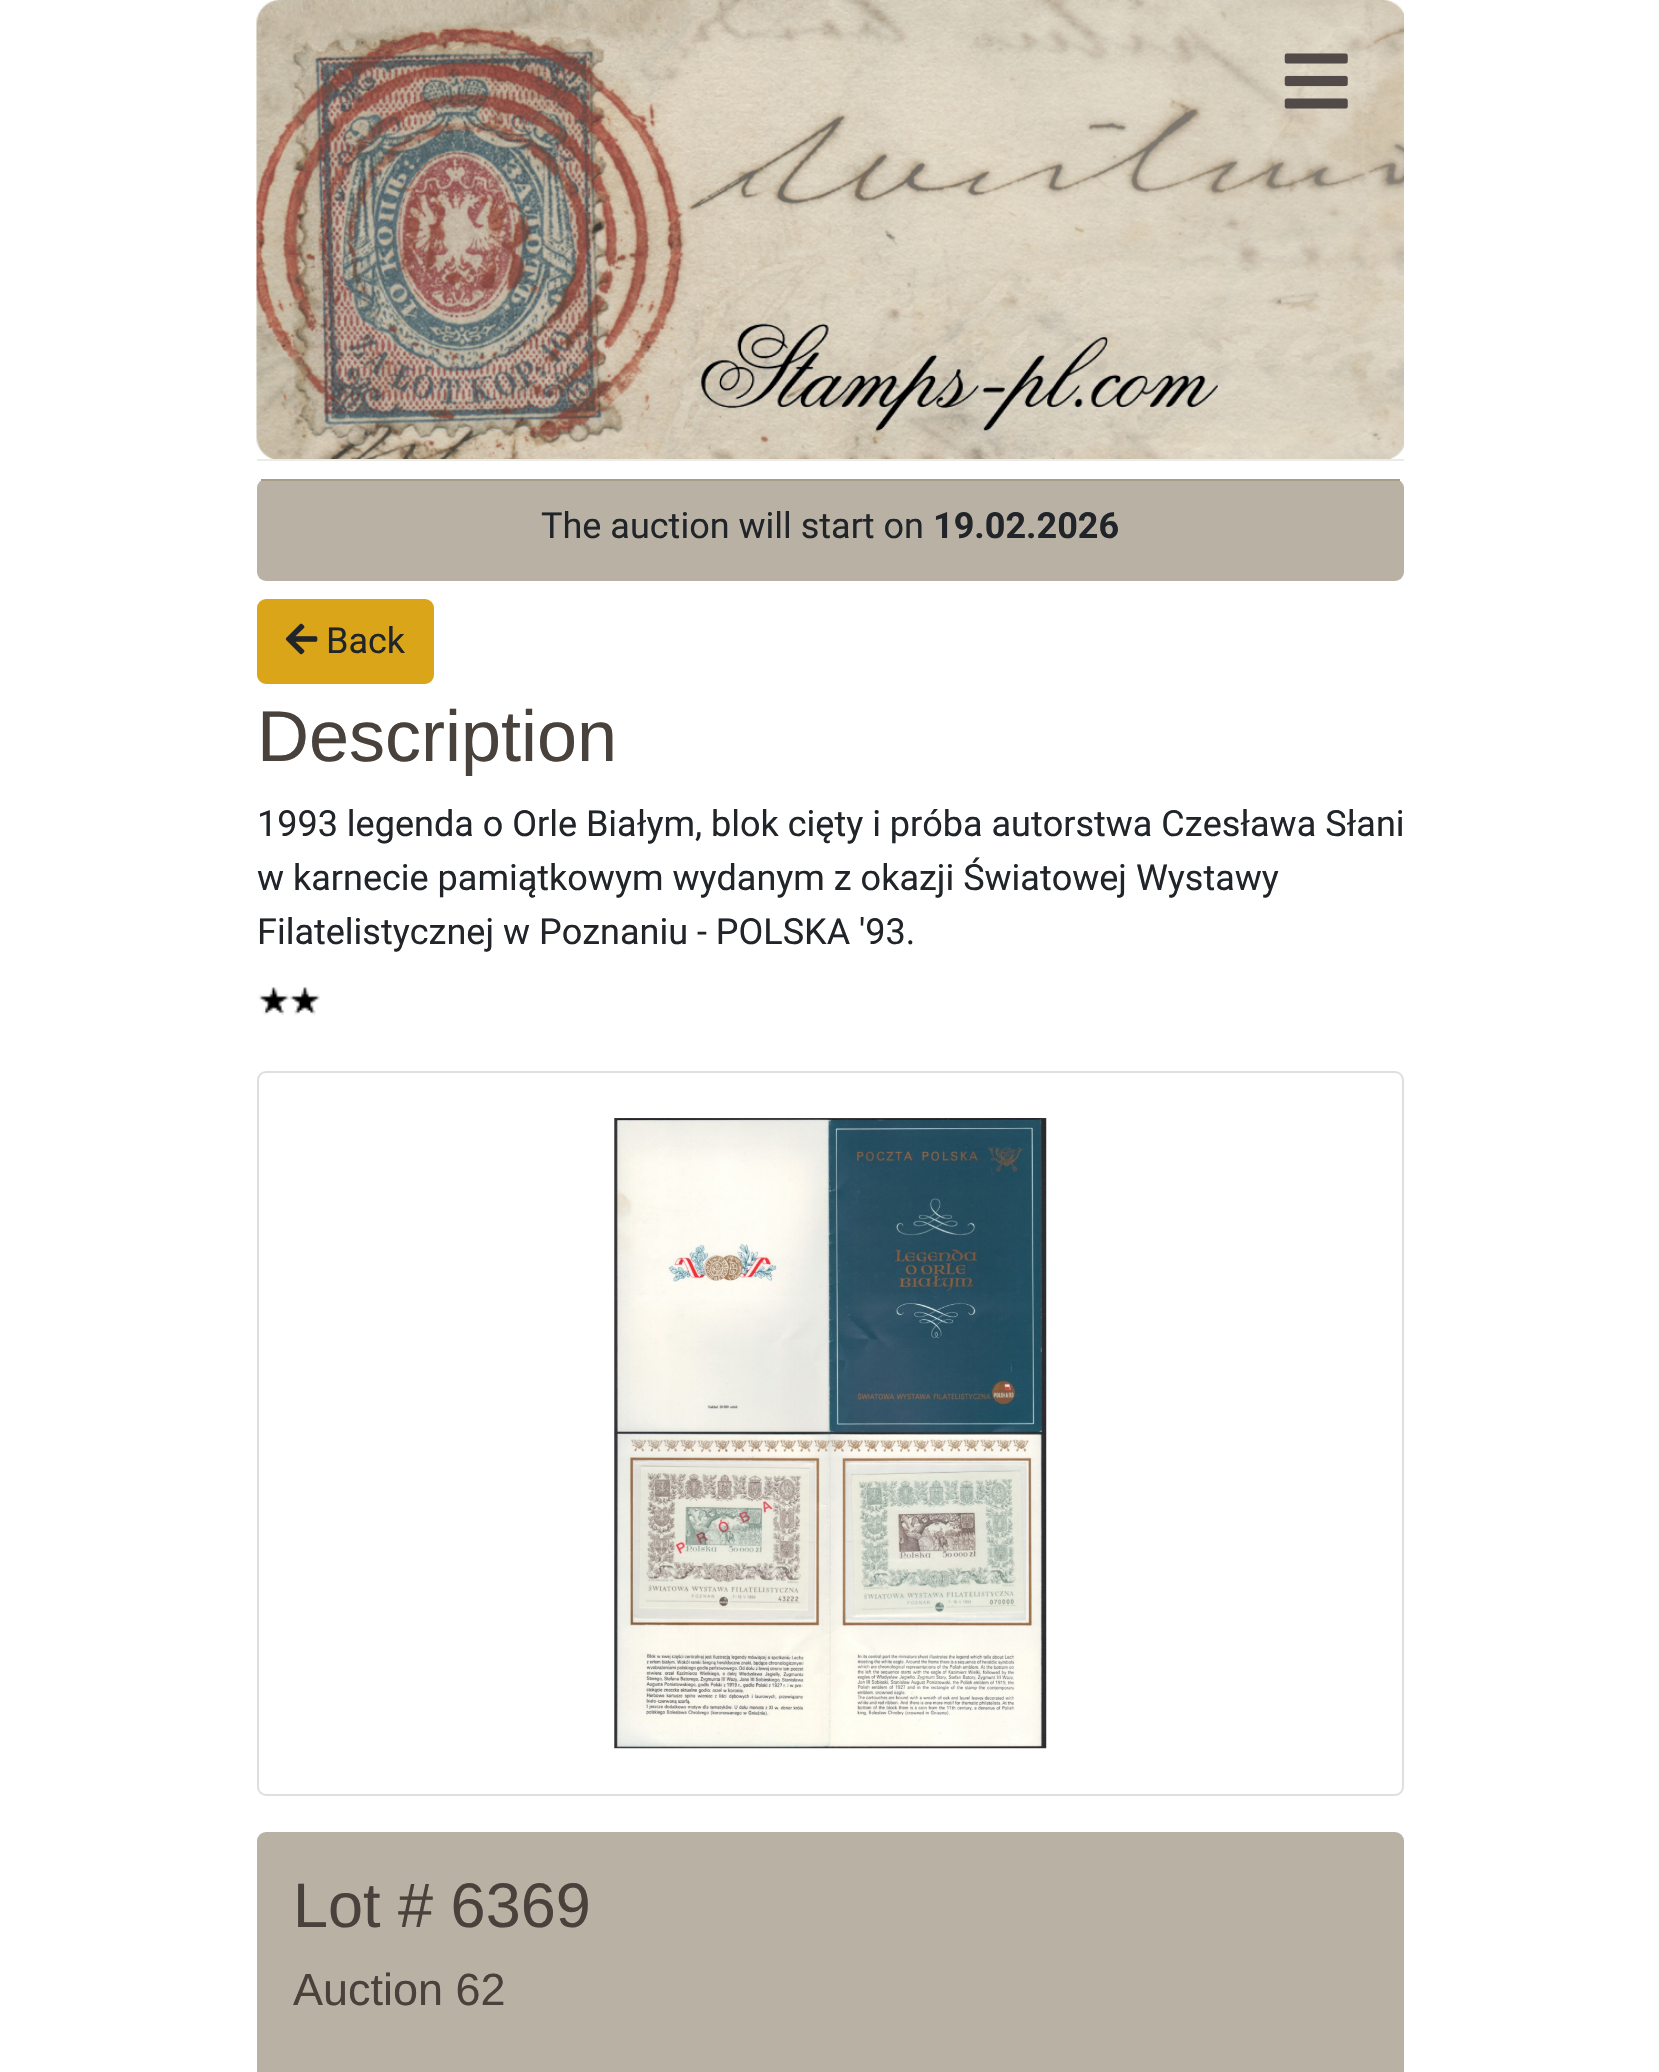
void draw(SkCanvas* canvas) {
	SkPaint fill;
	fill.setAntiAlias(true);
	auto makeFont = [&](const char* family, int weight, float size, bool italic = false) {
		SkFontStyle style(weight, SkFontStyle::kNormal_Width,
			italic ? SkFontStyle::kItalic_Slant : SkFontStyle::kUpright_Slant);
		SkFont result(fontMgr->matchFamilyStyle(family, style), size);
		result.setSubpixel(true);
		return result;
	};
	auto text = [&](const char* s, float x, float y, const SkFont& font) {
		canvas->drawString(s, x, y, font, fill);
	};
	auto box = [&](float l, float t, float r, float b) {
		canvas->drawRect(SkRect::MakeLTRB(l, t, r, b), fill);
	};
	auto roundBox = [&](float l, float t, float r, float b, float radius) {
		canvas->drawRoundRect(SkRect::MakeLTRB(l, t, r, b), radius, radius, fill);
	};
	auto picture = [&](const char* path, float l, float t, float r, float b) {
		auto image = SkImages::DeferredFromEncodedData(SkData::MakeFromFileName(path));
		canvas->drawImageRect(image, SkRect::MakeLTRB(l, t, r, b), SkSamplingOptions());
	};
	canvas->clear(0xFFFFFFFF);
	fill.setColor(0xFFECEBE8);
	box(257, 459, 1404, 461);
	picture("image0.png", 256, 0, 1404, 459);
	picture("image1.png", 1284, 53, 1348, 109);
	fill.setColor(0xFFB9B1A3);
	roundBox(257, 479, 1404, 581, 9);
	fill.setColor(0xFFA89D88);
	box(261, 479, 1400, 481);
	fill.setColor(0xFFDBA51A);
	canvas->drawRoundRect(SkRect::MakeLTRB(258, 600, 433, 683), 8, 8, fill);
	fill.setStyle(SkPaint::kStroke_Style);
	fill.setStrokeWidth(2);
	canvas->drawRoundRect(SkRect::MakeLTRB(258, 600, 433, 683), 8, 8, fill);
	picture("image2.png", 285, 623, 318, 655);
	picture("image3.png", 258, 987, 320, 1016);
	fill.setColor(0xFFDFDFDF);
	canvas->drawRoundRect(SkRect::MakeLTRB(258, 1072, 1403, 1795), 8, 8, fill);
	picture("image4.png", 614, 1118, 1047, 1749);
	fill.setStyle(SkPaint::kFill_Style);
	fill.setColor(0xFFB9B1A3);
	roundBox(257, 1832, 1404, 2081, 9);
	auto font1 = makeFont("Roboto", 400, 36);
	fill.setColor(0xFF212529);
	text("The auction will start on", 541, 538, font1);
	auto font2 = makeFont("Roboto", 700, 36);
	text("19.02.2026", 933, 538, font2);
	text("Back", 326, 653, font1);
	auto font3 = makeFont("Liberation Sans", 400, 72);
	fill.setColor(0xFF49423C);
	text("Description", 257, 761, font3);
	fill.setColor(0xFF212529);
	text("1993 legenda o Orle Białym, blok cięty i próba autorstwa Czesława Słani", 257, 836, font1);
	text("w karnecie pamiątkowym wydanym z okazji Światowej Wystawy", 257, 890, font1);
	text("Filatelistycznej w Poznaniu - POLSKA '93.", 257, 944, font1);
	auto font4 = makeFont("Liberation Sans", 400, 63);
	fill.setColor(0xFF49423C);
	text("Lot # 6369", 293, 1927, font4);
	auto font5 = makeFont("Liberation Sans", 400, 45);
	text("Auction 62", 293, 2005, font5);
}
